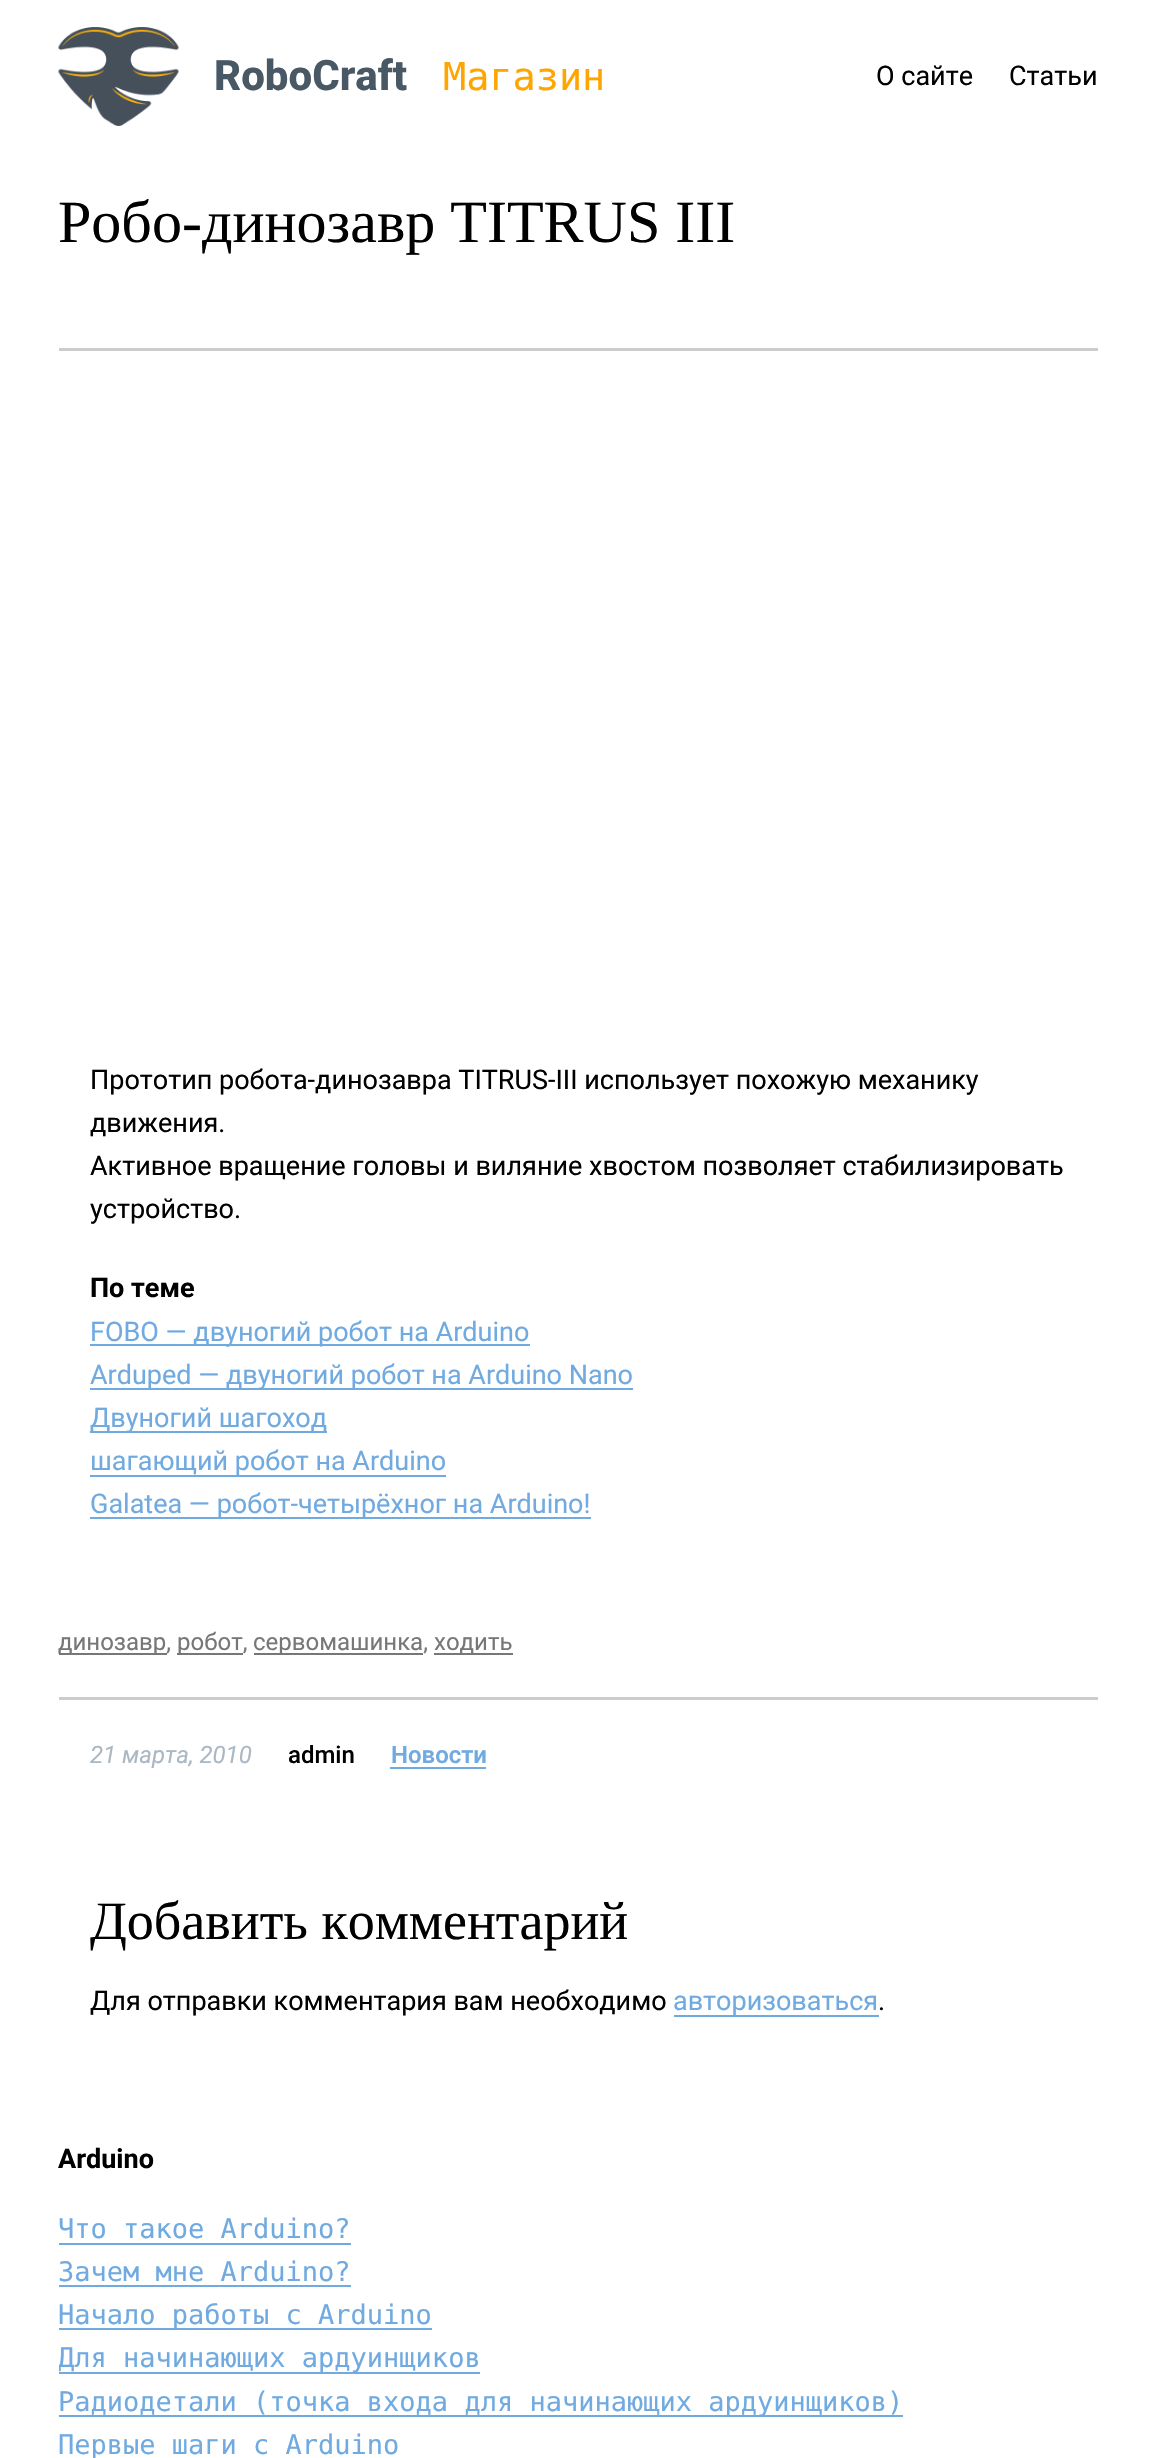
void draw(SkCanvas* canvas) {
	SkPaint fill;
	fill.setAntiAlias(true);
	auto makeFont = [&](const char* family, int weight, float size, bool italic = false) {
		SkFontStyle style(weight, SkFontStyle::kNormal_Width,
			italic ? SkFontStyle::kItalic_Slant : SkFontStyle::kUpright_Slant);
		SkFont result(fontMgr->matchFamilyStyle(family, style), size);
		result.setSubpixel(true);
		return result;
	};
	auto text = [&](const char* s, float x, float y, const SkFont& font) {
		canvas->drawString(s, x, y, font, fill);
	};
	auto box = [&](float l, float t, float r, float b) {
		canvas->drawRect(SkRect::MakeLTRB(l, t, r, b), fill);
	};
	auto picture = [&](const char* path, float l, float t, float r, float b) {
		auto image = SkImages::DeferredFromEncodedData(SkData::MakeFromFileName(path));
		canvas->drawImageRect(image, SkRect::MakeLTRB(l, t, r, b), SkSamplingOptions());
	};
	canvas->clear(0xFFFFFFFF);
	picture("image0.png", 58, 27, 179, 126);
	fill.setColor(0xFFCCCCCC);
	box(59, 348, 1098, 351);
	fill.setColor(0xFF70AAE0);
	box(90, 1344, 530, 1346);
	box(90, 1388, 633, 1390);
	box(90, 1431, 327, 1433);
	box(90, 1475, 446, 1477);
	box(90, 1517, 591, 1519);
	fill.setColor(0xFF777777);
	box(59, 1653, 167, 1655);
	box(177, 1653, 243, 1655);
	box(254, 1653, 423, 1655);
	box(434, 1653, 513, 1655);
	fill.setColor(0xFFCCCCCC);
	box(59, 1697, 1098, 1700);
	fill.setColor(0xFF70AAE0);
	box(390, 1767, 486, 1769);
	box(674, 2015, 879, 2017);
	box(59, 2243, 351, 2245);
	box(59, 2285, 351, 2287);
	box(59, 2328, 432, 2330);
	box(59, 2372, 480, 2374);
	box(59, 2415, 903, 2417);
	auto font1 = makeFont("Roboto", 800, 42);
	fill.setColor(0xFF485865);
	text("RoboCraft", 214, 90, font1);
	auto font2 = makeFont("DejaVu Sans Mono", 400, 38.5f);
	fill.setColor(0xFFFFA500);
	text("Магазин", 443, 90, font2);
	auto font3 = makeFont("Roboto", 400, 27);
	fill.setColor(0xFF000000);
	text("О сайте", 876, 85, font3);
	text("Статьи", 1009, 85, font3);
	auto font4 = makeFont("Liberation Serif", 400, 60);
	text("Робо-динозавр TITRUS III", 58, 242, font4);
	text("Прототип робота-динозавра TITRUS-III использует похожую механику", 90, 1089, font3);
	text("движения.", 90, 1132, font3);
	text("Активное вращение головы и виляние хвостом позволяет стабилизировать", 90, 1175, font3);
	text("устройство.", 90, 1218, font3);
	auto font5 = makeFont("Roboto", 700, 27);
	text("По теме", 90, 1297, font5);
	fill.setColor(0xFF70AAE0);
	text("FOBO — двуногий робот на Arduino", 90, 1341, font3);
	text("Arduped — двуногий робот на Arduino Nano", 90, 1384, font3);
	text("Двуногий шагоход", 90, 1427, font3);
	text("шагающий робот на Arduino", 90, 1470, font3);
	text("Galatea — робот-четырёхног на Arduino!", 90, 1513, font3);
	auto font6 = makeFont("Roboto", 400, 24);
	fill.setColor(0xFF777777);
	text("динозавр,", 58, 1650, font6);
	text("робот,", 177, 1650, font6);
	text("сервомашинка,", 253, 1650, font6);
	text("ходить", 434, 1650, font6);
	auto font7 = makeFont("Roboto", 400, 24, true);
	fill.setColor(0xFFABB8C3);
	text("21 марта, 2010", 90, 1763, font7);
	auto font8 = makeFont("Roboto", 500, 24);
	fill.setColor(0xFF000000);
	text("admin", 288, 1763, font8);
	auto font9 = makeFont("Roboto", 600, 24);
	fill.setColor(0xFF70AAE0);
	text("Новости", 391, 1763, font9);
	auto font10 = makeFont("Liberation Serif", 400, 54);
	fill.setColor(0xFF000000);
	text("Добавить комментарий", 90, 1939, font10);
	text("Для отправки комментария вам необходимо", 90, 2010, font3);
	fill.setColor(0xFF70AAE0);
	text("авторизоваться", 673, 2010, font3);
	fill.setColor(0xFF000000);
	text(".", 878, 2010, font3);
	text("Arduino", 58, 2168, font5);
	auto font11 = makeFont("DejaVu Sans Mono", 400, 27);
	fill.setColor(0xFF70AAE0);
	text("Что такое Arduino?", 58, 2238, font11);
	text("Зачем мне Arduino?", 58, 2281, font11);
	text("Начало работы с Arduino", 58, 2324, font11);
	canvas->save();
	canvas->clipRect(SkRect::MakeLTRB(59, 2208, 1098, 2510));
	text("Для начинающих ардуинщиков", 58, 2367, font11);
	canvas->restore();
	text("Радиодетали (точка входа для начинающих ардуинщиков)", 58, 2411, font11);
	text("Первые шаги с Arduino", 58, 2454, font11);
}
